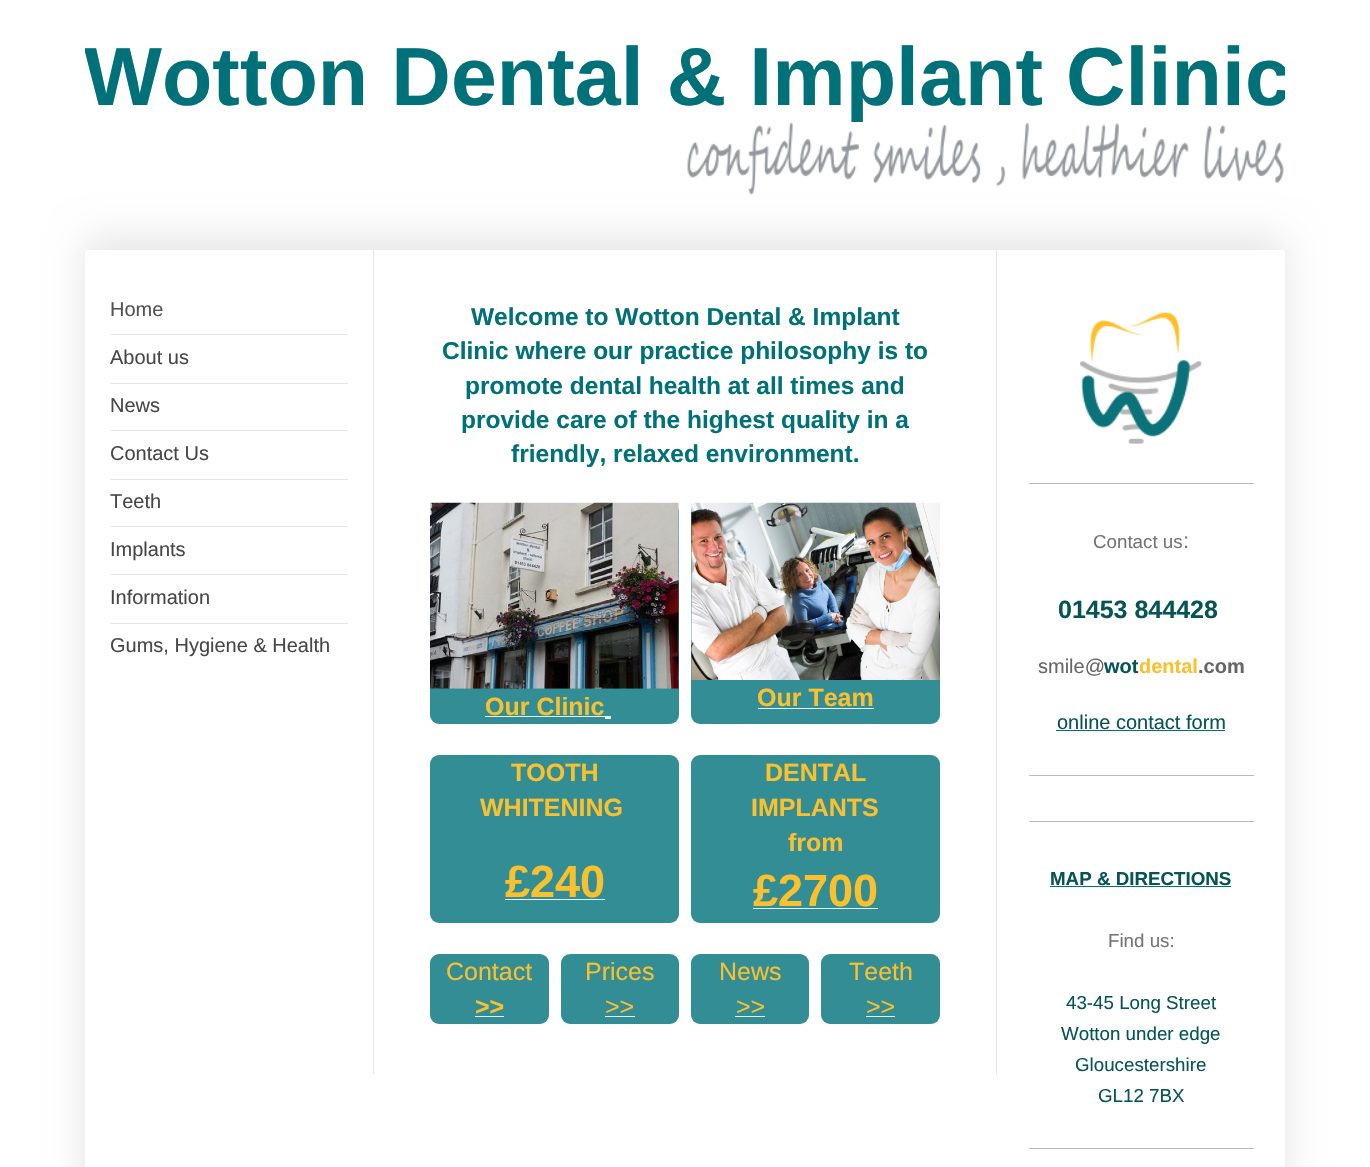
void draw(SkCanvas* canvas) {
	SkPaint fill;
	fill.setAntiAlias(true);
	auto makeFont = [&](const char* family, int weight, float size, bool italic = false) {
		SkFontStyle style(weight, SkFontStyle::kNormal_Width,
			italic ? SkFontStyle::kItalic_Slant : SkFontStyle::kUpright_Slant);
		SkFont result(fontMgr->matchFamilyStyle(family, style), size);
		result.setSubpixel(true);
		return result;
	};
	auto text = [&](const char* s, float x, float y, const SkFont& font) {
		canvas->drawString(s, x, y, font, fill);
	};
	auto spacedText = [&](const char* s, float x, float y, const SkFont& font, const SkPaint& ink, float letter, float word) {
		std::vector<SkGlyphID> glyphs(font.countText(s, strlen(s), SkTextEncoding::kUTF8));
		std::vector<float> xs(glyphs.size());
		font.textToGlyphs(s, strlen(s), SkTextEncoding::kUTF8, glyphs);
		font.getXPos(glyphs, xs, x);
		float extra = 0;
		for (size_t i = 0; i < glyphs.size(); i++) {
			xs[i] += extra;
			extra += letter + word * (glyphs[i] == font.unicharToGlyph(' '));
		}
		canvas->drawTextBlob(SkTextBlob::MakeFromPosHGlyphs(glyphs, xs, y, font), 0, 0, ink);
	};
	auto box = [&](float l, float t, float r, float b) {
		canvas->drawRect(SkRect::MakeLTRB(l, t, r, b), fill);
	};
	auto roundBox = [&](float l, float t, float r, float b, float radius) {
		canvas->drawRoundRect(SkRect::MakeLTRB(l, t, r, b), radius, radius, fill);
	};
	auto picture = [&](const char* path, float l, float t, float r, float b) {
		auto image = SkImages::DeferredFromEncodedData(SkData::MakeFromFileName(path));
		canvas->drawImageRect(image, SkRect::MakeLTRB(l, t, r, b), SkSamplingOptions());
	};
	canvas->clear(0xFFFFFFFF);
	fill.setColor(0x1A000000);
	fill.setMaskFilter(SkMaskFilter::MakeBlur(kNormal_SkBlurStyle, 19));
	canvas->drawRoundRect(SkRect::MakeLTRB(85, 238, 1285, 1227), 2.5f, 2.5f, fill);
	fill.setMaskFilter(nullptr);
	picture("image0.png", 687, 122, 1284, 195);
	fill.setColor(0xFFFFFFFF);
	roundBox(85, 250, 1285, 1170, 2.5f);
	fill.setColor(0xFFE6E6E6);
	box(110, 334, 348, 335);
	box(110, 383, 348, 384);
	box(110, 430, 348, 431);
	box(110, 479, 348, 480);
	box(110, 526, 348, 527);
	box(110, 574, 348, 575);
	box(110, 623, 348, 624);
	box(996, 250, 997, 1074);
	box(373, 250, 374, 1074);
	fill.setColor(0xFF338D94);
	roundBox(430, 503, 679, 724, 9);
	picture("image1.png", 430, 502, 679, 689);
	fill.setColor(0xFFE6F1F2);
	box(485, 716, 605, 717);
	box(605, 716, 611, 719);
	fill.setColor(0xFF338D94);
	roundBox(691, 503, 940, 724, 9);
	picture("image2.png", 691, 502, 940, 680);
	fill.setColor(0xFFE6F1F2);
	box(758, 708, 874, 709);
	fill.setColor(0xFF338D94);
	roundBox(430, 755, 679, 923, 9);
	fill.setColor(0xFFE6F1F2);
	box(505, 899, 605, 900);
	fill.setColor(0xFF338D94);
	roundBox(691, 755, 940, 923, 9);
	fill.setColor(0xFFE6F1F2);
	box(753, 908, 878, 909);
	fill.setColor(0xFF338D94);
	roundBox(430, 954, 549, 1024, 9);
	fill.setColor(0xFFE6F1F2);
	box(475, 1016, 504, 1017);
	fill.setColor(0xFF338D94);
	roundBox(561, 954, 679, 1024, 9);
	fill.setColor(0xFFE6F1F2);
	box(605, 1016, 635, 1017);
	fill.setColor(0xFF338D94);
	roundBox(691, 954, 809, 1024, 9);
	fill.setColor(0xFFE6F1F2);
	box(735, 1016, 765, 1017);
	fill.setColor(0xFF338D94);
	roundBox(821, 954, 940, 1024, 9);
	fill.setColor(0xFFE6F1F2);
	box(866, 1016, 895, 1017);
	picture("image3.png", 1080, 312, 1202, 444);
	fill.setColor(0xFFBABABA);
	box(1029, 483, 1254, 484);
	fill.setColor(0xFF007179);
	box(1056, 730, 1225, 731);
	fill.setColor(0xFFBABABA);
	box(1029, 775, 1254, 776);
	box(1029, 821, 1254, 822);
	fill.setColor(0xFF007179);
	box(1050, 886, 1231, 887);
	fill.setColor(0xFFBABABA);
	box(1029, 1148, 1254, 1149);
	canvas->save();
	canvas->clipPath(SkPathBuilder().moveTo(87.5f, 26).lineTo(1282.5f, 26).cubicTo(1284, 26, 1285, 27, 1285, 28.5f).lineTo(1285, 221.5f).cubicTo(1285, 223, 1284, 224, 1282.5f, 224).lineTo(87.5f, 224).cubicTo(86, 224, 85, 223, 85, 221.5f).lineTo(85, 28.5f).cubicTo(85, 27, 86, 26, 87.5f, 26).close().detach(), true);
	auto font1 = makeFont("Liberation Sans", 700, 82.5f);
	fill.setColor(0xFF007179);
	spacedText("Wotton Dental & Implant Clinic", 84, 105, font1, fill, 0.05f, 0);
	canvas->restore();
	auto font2 = makeFont("Liberation Sans", 400, 20);
	fill.setColor(0xFF535353);
	text("Home", 110, 316, font2);
	fill.setColor(0xFF474747);
	text("About us", 110, 364, font2);
	text("News", 110, 412, font2);
	text("Contact Us", 110, 460, font2);
	text("Teeth", 110, 508, font2);
	text("Implants", 110, 556, font2);
	text("Information", 110, 604, font2);
	text("Gums, Hygiene & Health", 110, 652, font2);
	auto font3 = makeFont("Liberation Sans", 700, 24.5f);
	fill.setColor(0xFF007179);
	text("Welcome to Wotton Dental & Implant", 471, 325, font3);
	text("Clinic where our practice philosophy is to", 442, 359, font3);
	text("promote dental health at all times and", 465, 394, font3);
	text("provide care of the highest quality in a", 461, 428, font3);
	text("friendly, relaxed environment.", 511, 462, font3);
	auto font4 = makeFont("Liberation Sans", 700, 25);
	fill.setColor(0xFFFBC02E);
	text("Our Clinic", 485, 715, font4);
	text("Our Team", 757, 706, font4);
	text("TOOTH", 511, 781, font4);
	text("WHITENING", 480, 816, font4);
	auto font5 = makeFont("Liberation Sans", 700, 45);
	text("£240", 505, 897, font5);
	text("DENTAL", 765, 781, font4);
	text("IMPLANTS", 751, 816, font4);
	text("from", 788, 851, font4);
	text("£2700", 753, 906, font5);
	auto font6 = makeFont("Liberation Sans", 400, 25);
	text("Contact", 446, 980, font6);
	text(">>", 475, 1015, font4);
	text("Prices", 585, 980, font6);
	text(">>", 605, 1015, font6);
	text("News", 719, 980, font6);
	text(">>", 736, 1015, font6);
	text("Teeth", 849, 980, font6);
	text(">>", 866, 1015, font6);
	auto font7 = makeFont("Liberation Sans", 400, 18.75f);
	fill.setColor(0xFF757575);
	text("Contact us", 1093, 548, font7);
	auto font8 = makeFont("Liberation Sans", 400, 22);
	text(":", 1183, 548, font8);
	fill.setColor(0xFF065458);
	text("01453 844428", 1058, 618, font4);
	fill.setColor(0xFF666666);
	text("smile@", 1038, 673, font2);
	auto font9 = makeFont("Liberation Sans", 700, 20);
	fill.setColor(0xFF065458);
	text("wot", 1104, 673, font9);
	fill.setColor(0xFFFBC02E);
	text("dental", 1139, 673, font9);
	fill.setColor(0xFF666666);
	text(".com", 1198, 673, font9);
	fill.setColor(0xFF065458);
	text("online contact form", 1057, 729, font2);
	auto font10 = makeFont("Liberation Sans", 700, 18.75f);
	text("MAP & DIRECTIONS", 1050, 885, font10);
	fill.setColor(0xFF757575);
	text("Find us:", 1108, 947, font7);
	fill.setColor(0xFF065458);
	text("43-45 Long Street", 1066, 1009, font7);
	text("Wotton under edge", 1061, 1040, font7);
	text("Gloucestershire", 1075, 1071, font7);
	text("GL12 7BX", 1098, 1102, font7);
}
